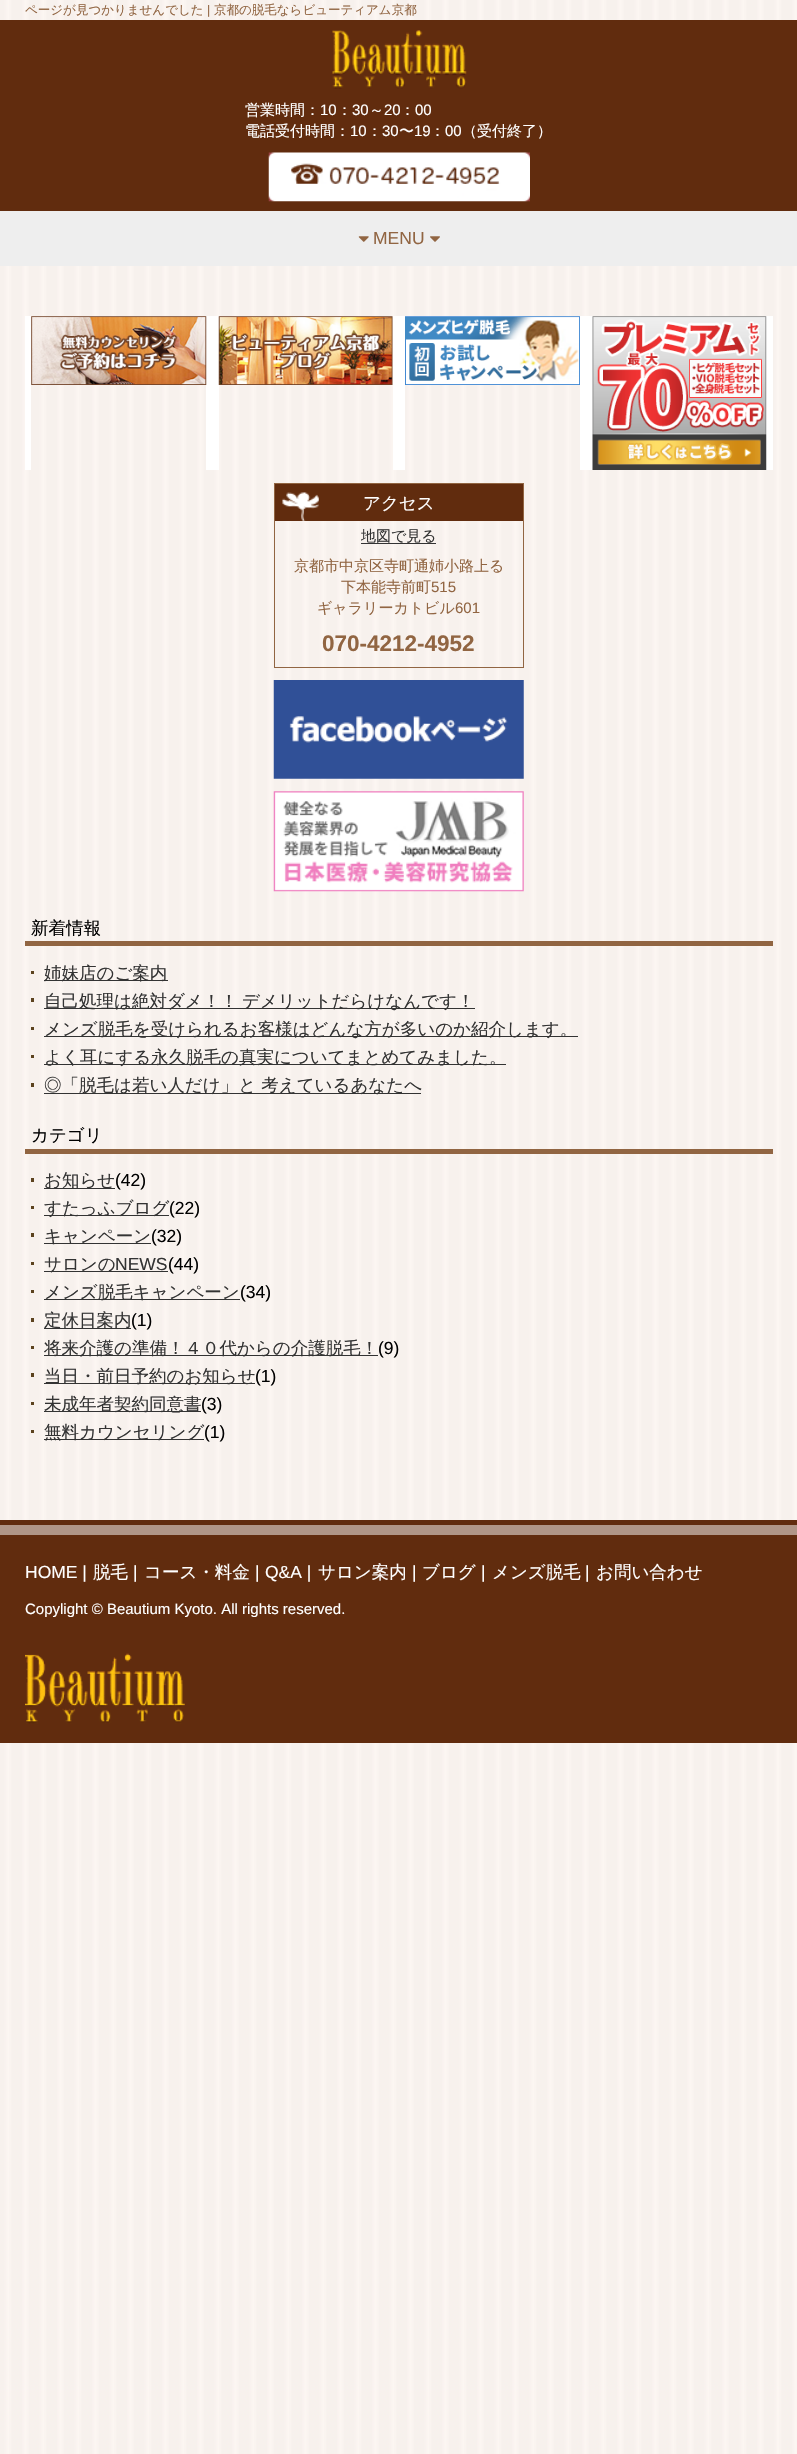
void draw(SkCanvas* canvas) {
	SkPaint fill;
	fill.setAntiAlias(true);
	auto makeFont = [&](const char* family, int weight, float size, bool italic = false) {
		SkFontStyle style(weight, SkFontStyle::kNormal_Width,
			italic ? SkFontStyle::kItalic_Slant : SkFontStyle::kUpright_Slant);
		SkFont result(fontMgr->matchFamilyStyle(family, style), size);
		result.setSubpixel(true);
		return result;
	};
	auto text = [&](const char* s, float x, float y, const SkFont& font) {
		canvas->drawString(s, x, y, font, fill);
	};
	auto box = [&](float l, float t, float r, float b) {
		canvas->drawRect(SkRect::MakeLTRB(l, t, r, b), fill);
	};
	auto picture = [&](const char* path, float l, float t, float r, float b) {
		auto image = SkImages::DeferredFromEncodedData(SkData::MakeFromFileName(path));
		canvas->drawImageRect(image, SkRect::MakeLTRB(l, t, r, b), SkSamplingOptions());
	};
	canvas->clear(0xFFFFFFFF);
	picture("image0.png", 0, 0, 797, 2454);
	fill.setColor(0xFF612C0E);
	box(0, 20, 797, 211);
	picture("image1.png", 332, 30, 467, 89);
	picture("image2.png", 268, 152, 530, 202);
	fill.setColor(0xFFEEEEEE);
	box(0, 211, 797, 266);
	picture("image3.png", 358, 236, 369, 242);
	picture("image4.png", 430, 236, 440, 242);
	fill.setColor(0xFFFFFFFF);
	box(206, 316, 219, 470);
	box(25, 316, 31, 470);
	picture("image5.png", 31, 316, 207, 385);
	box(393, 316, 405, 470);
	picture("image6.png", 218, 316, 393, 385);
	box(580, 316, 593, 470);
	picture("image7.png", 405, 316, 580, 385);
	box(766, 316, 773, 470);
	picture("image8.png", 592, 316, 767, 470);
	fill.setStyle(SkPaint::kStroke_Style);
	fill.setStrokeWidth(1);
	fill.setColor(0xFF916542);
	canvas->drawRect(SkRect::MakeLTRB(274.5f, 483.5f, 523.5f, 667.5f), fill);
	fill.setStyle(SkPaint::kFill_Style);
	fill.setColor(0xFF612C0E);
	box(275, 484, 523, 521);
	picture("image9.png", 282, 492, 319, 521);
	fill.setColor(0xFF333333);
	box(361, 543, 436, 544);
	picture("image10.png", 273, 680, 524, 779);
	picture("image11.png", 273, 791, 524, 892);
	fill.setColor(0xFF916542);
	box(25, 941, 773, 946);
	fill.setColor(0xFF5B421E);
	box(31, 971, 34, 974);
	fill.setColor(0xFF333333);
	box(44, 980, 168, 981);
	fill.setColor(0xFF5B421E);
	box(31, 998, 34, 1002);
	fill.setColor(0xFF333333);
	box(44, 1008, 475, 1009);
	fill.setColor(0xFF5B421E);
	box(31, 1027, 34, 1030);
	fill.setColor(0xFF333333);
	box(44, 1036, 578, 1037);
	fill.setColor(0xFF5B421E);
	box(31, 1055, 34, 1058);
	fill.setColor(0xFF333333);
	box(44, 1064, 506, 1065);
	fill.setColor(0xFF5B421E);
	box(31, 1083, 34, 1087);
	fill.setColor(0xFF333333);
	box(44, 1093, 421, 1094);
	fill.setColor(0xFF916542);
	box(25, 1149, 773, 1154);
	fill.setColor(0xFF5B421E);
	box(31, 1178, 34, 1182);
	fill.setColor(0xFF333333);
	box(44, 1188, 115, 1189);
	fill.setColor(0xFF5B421E);
	box(31, 1206, 34, 1209);
	fill.setColor(0xFF333333);
	box(44, 1215, 169, 1216);
	fill.setColor(0xFF5B421E);
	box(31, 1233, 34, 1237);
	fill.setColor(0xFF333333);
	box(44, 1243, 151, 1244);
	fill.setColor(0xFF5B421E);
	box(31, 1262, 34, 1265);
	fill.setColor(0xFF333333);
	box(44, 1271, 168, 1272);
	fill.setColor(0xFF5B421E);
	box(31, 1290, 34, 1293);
	fill.setColor(0xFF333333);
	box(44, 1299, 240, 1300);
	fill.setColor(0xFF5B421E);
	box(31, 1318, 34, 1322);
	fill.setColor(0xFF333333);
	box(44, 1328, 131, 1329);
	fill.setColor(0xFF5B421E);
	box(31, 1346, 34, 1349);
	fill.setColor(0xFF333333);
	box(44, 1355, 378, 1356);
	fill.setColor(0xFF5B421E);
	box(31, 1373, 34, 1377);
	fill.setColor(0xFF333333);
	box(44, 1383, 255, 1384);
	fill.setColor(0xFF5B421E);
	box(31, 1402, 34, 1405);
	fill.setColor(0xFF333333);
	box(44, 1411, 201, 1412);
	fill.setColor(0xFF5B421E);
	box(31, 1430, 34, 1433);
	fill.setColor(0xFF333333);
	box(44, 1439, 204, 1440);
	fill.setColor(0xFF612C0E);
	box(0, 1520, 797, 1743);
	fill.setColor(0xFFB09687);
	box(0, 1525, 797, 1535);
	picture("image12.png", 25, 1653, 185, 1724);
	auto font1 = makeFont("WenQuanYi Zen Hei", 500, 12.5f);
	fill.setColor(0xFF916542);
	text("ページが見つかりませんでした", 25, 14, font1);
	auto font2 = makeFont("Liberation Sans", 400, 12.5f);
	text("|", 207, 14, font2);
	text("京都の脱毛ならビューティアム京都", 214, 14, font1);
	auto font3 = makeFont("WenQuanYi Zen Hei", 500, 15);
	fill.setColor(0xFFFFFFFF);
	text("営業時間：", 245, 115, font3);
	auto font4 = makeFont("Liberation Sans", 400, 15);
	text("10", 320, 115, font4);
	text("：", 337, 115, font3);
	text("30", 352, 115, font4);
	text("～", 369, 115, font3);
	text("20", 384, 115, font4);
	text("：", 400, 115, font3);
	text("00", 415, 115, font4);
	text("電話受付時間：", 245, 136, font3);
	text("10", 350, 136, font4);
	text("：", 367, 136, font3);
	text("30", 382, 136, font4);
	text("〜", 399, 136, font3);
	text("19", 414, 136, font4);
	text("：", 430, 136, font3);
	text("00", 445, 136, font4);
	text("（受付終了）", 462, 136, font3);
	auto font5 = makeFont("Liberation Sans", 400, 17.5f);
	fill.setColor(0xFF916542);
	text("MENU", 373, 244, font5);
	auto font6 = makeFont("WenQuanYi Zen Hei", 500, 17.5f);
	fill.setColor(0xFFFFFFFF);
	text("アクセス", 363, 509, font6);
	fill.setColor(0xFF333333);
	text("地図で見る", 361, 541, font3);
	fill.setColor(0xFF916542);
	text("京都市中京区寺町通姉小路上る", 294, 571, font3);
	text("下本能寺前町", 341, 592, font3);
	text("515", 431, 592, font4);
	text("ギャラリーカトビル", 317, 613, font3);
	text("601", 455, 613, font4);
	auto font7 = makeFont("Liberation Sans", 700, 22.5f);
	text("070-4212-4952", 322, 651, font7);
	fill.setColor(0xFF000000);
	text("新着情報", 31, 934, font6);
	fill.setColor(0xFF333333);
	text("姉妹店のご案内", 44, 979, font6);
	text("自己処理は絶対ダメ！！", 44, 1007, font6);
	text("デメリットだらけなんです！", 242, 1007, font6);
	text("メンズ脱毛を受けられるお客様はどんな方が多いのか紹介します。", 44, 1035, font6);
	text("よく耳にする永久脱毛の真実についてまとめてみました。", 44, 1063, font6);
	text("◎「脱毛は若い人だけ」と 考えているあなたへ", 44, 1091, font6);
	fill.setColor(0xFF000000);
	text("カテゴリ", 31, 1141, font6);
	fill.setColor(0xFF333333);
	text("お知らせ", 44, 1186, font6);
	fill.setColor(0xFF000000);
	text("(42)", 115, 1186, font5);
	fill.setColor(0xFF333333);
	text("すたっふブログ", 44, 1214, font6);
	fill.setColor(0xFF000000);
	text("(22)", 169, 1214, font5);
	fill.setColor(0xFF333333);
	text("キャンペーン", 44, 1242, font6);
	fill.setColor(0xFF000000);
	text("(32)", 151, 1242, font5);
	fill.setColor(0xFF333333);
	text("サロンの", 44, 1270, font6);
	text("NEWS", 115, 1270, font5);
	fill.setColor(0xFF000000);
	text("(44)", 168, 1270, font5);
	fill.setColor(0xFF333333);
	text("メンズ脱毛キャンペーン", 44, 1298, font6);
	fill.setColor(0xFF000000);
	text("(34)", 240, 1298, font5);
	fill.setColor(0xFF333333);
	text("定休日案内", 44, 1326, font6);
	fill.setColor(0xFF000000);
	text("(1)", 131, 1326, font5);
	fill.setColor(0xFF333333);
	text("将来介護の準備！４０代からの介護脱毛！", 44, 1354, font6);
	fill.setColor(0xFF000000);
	text("(9)", 378, 1354, font5);
	fill.setColor(0xFF333333);
	text("当日・前日予約のお知らせ", 44, 1382, font6);
	fill.setColor(0xFF000000);
	text("(1)", 255, 1382, font5);
	fill.setColor(0xFF333333);
	text("未成年者契約同意書", 44, 1410, font6);
	fill.setColor(0xFF000000);
	text("(3)", 201, 1410, font5);
	fill.setColor(0xFF333333);
	text("無料カウンセリング", 44, 1438, font6);
	fill.setColor(0xFF000000);
	text("(1)", 204, 1438, font5);
	fill.setColor(0xFFFFFFFF);
	text("HOME |", 25, 1578, font5);
	text("脱毛", 93, 1578, font6);
	text("|", 133, 1578, font5);
	text("コース・料金", 144, 1578, font6);
	text("|", 255, 1578, font5);
	text("Q&A |", 265, 1578, font5);
	text("サロン案内", 318, 1578, font6);
	text("|", 412, 1578, font5);
	text("ブログ", 422, 1578, font6);
	text("|", 481, 1578, font5);
	text("メンズ脱毛", 492, 1578, font6);
	text("|", 585, 1578, font5);
	text("お問い合わせ", 596, 1578, font6);
	text("Copylight © Beautium Kyoto. All rights reserved.", 25, 1614, font4);
}
